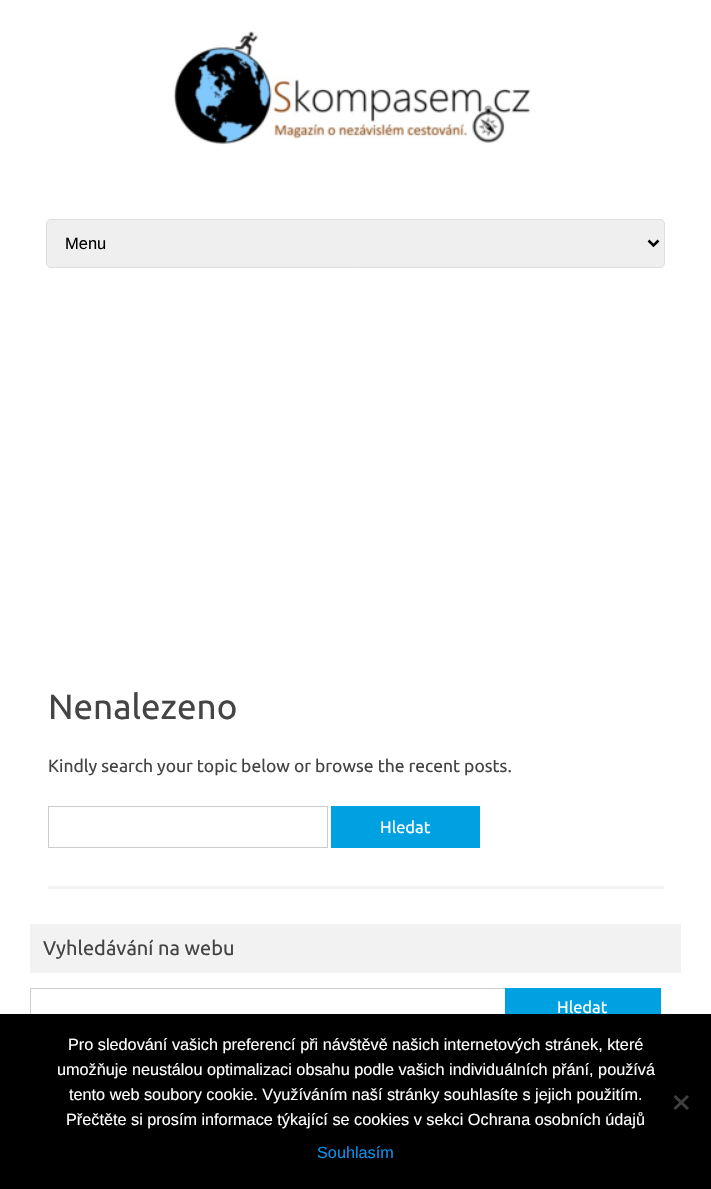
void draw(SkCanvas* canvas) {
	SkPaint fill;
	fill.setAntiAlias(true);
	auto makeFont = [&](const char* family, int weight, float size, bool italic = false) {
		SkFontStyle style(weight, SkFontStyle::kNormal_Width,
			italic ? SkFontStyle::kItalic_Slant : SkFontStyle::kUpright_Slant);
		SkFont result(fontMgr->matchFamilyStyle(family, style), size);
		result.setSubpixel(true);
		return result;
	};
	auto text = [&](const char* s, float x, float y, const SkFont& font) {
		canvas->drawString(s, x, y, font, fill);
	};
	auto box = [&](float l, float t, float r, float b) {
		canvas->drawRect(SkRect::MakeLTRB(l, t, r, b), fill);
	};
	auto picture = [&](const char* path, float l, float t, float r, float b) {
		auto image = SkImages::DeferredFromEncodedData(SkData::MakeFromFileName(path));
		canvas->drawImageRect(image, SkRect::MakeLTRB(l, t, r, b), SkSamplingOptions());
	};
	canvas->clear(0xFFFFFFFF);
	picture("image0.png", 173, 31, 531, 145);
	fill.setColor(0xFFEFEFEF);
	canvas->drawRoundRect(SkRect::MakeLTRB(46.5f, 219.5f, 664.5f, 267.5f), 4.5f, 4.5f, fill);
	fill.setStyle(SkPaint::kStroke_Style);
	fill.setStrokeWidth(1);
	fill.setColor(0xFFDDDDDD);
	canvas->drawRoundRect(SkRect::MakeLTRB(46.5f, 219.5f, 664.5f, 267.5f), 4.5f, 4.5f, fill);
	fill.setStrokeWidth(2.5f);
	fill.setColor(0xFF000000);
	canvas->drawPath(SkPathBuilder().moveTo(648.5f, 240.5f).lineTo(653.5f, 245.5f).lineTo(658.5f, 240.5f).detach(), fill);
	fill.setStyle(SkPaint::kFill_Style);
	fill.setColor(0xFFF3F3F3);
	box(48, 886, 664, 889);
	fill.setStyle(SkPaint::kStroke_Style);
	fill.setStrokeWidth(1);
	fill.setColor(0xFFCCCCCC);
	canvas->drawRect(SkRect::MakeLTRB(48.5f, 806.5f, 327.5f, 847.5f), fill);
	fill.setStyle(SkPaint::kFill_Style);
	fill.setColor(0xFF00A1E0);
	box(331, 806, 480, 848);
	fill.setColor(0xFFF2F2F2);
	box(30, 924, 681, 973);
	fill.setStyle(SkPaint::kStroke_Style);
	fill.setColor(0xFFCCCCCC);
	canvas->drawRect(SkRect::MakeLTRB(30.5f, 988.5f, 505.5f, 1028.5f), fill);
	fill.setStyle(SkPaint::kFill_Style);
	fill.setColor(0xFF00A1E0);
	box(505, 988, 661, 1014);
	fill.setColor(0xFF000000);
	box(0, 1014, 711, 1189);
	fill.setColor(0xFF404040);
	canvas->drawPath(SkPathBuilder().moveTo(687, 1095).lineTo(689, 1097).lineTo(675.5f, 1110).lineTo(673.5f, 1108).close().detach(), fill);
	canvas->drawPath(SkPathBuilder().moveTo(673.5f, 1097).lineTo(675.5f, 1095).lineTo(689, 1108).lineTo(687, 1110).close().detach(), fill);
	auto font1 = makeFont("Liberation Sans", 400, 16.5f);
	fill.setColor(0xFF000000);
	text("Menu", 65, 249, font1);
	auto font2 = makeFont("Ubuntu", 400, 35);
	fill.setColor(0xFF444444);
	text("Nenalezeno", 48, 719, font2);
	auto font3 = makeFont("Ubuntu", 400, 17.5f);
	text("Kindly search your topic below or browse the recent posts.", 48, 772, font3);
	auto font4 = makeFont("Ubuntu", 400, 16.5f);
	fill.setColor(0xFFFFFFFF);
	text("Hledat", 380, 833, font4);
	auto font5 = makeFont("Ubuntu", 400, 20);
	fill.setColor(0xFF444444);
	text("Vyhledávání na webu", 43, 955, font5);
	fill.setColor(0xFFFFFFFF);
	text("Hledat", 557, 1013, font4);
	auto font6 = makeFont("Liberation Sans", 400, 16.25f);
	text("Pro sledování vašich preferencí při návštěvě našich internetových stránek, které", 68, 1050, font6);
	text("umožňuje neustálou optimalizaci obsahu podle vašich individuálních přání, používá", 57, 1075, font6);
	text("tento web soubory cookie. Využíváním naší stránky souhlasíte s jejich použitím.", 69, 1100, font6);
	text("Přečtěte si prosím informace týkající se cookies v sekci Ochrana osobních údajů", 66, 1125, font6);
	fill.setColor(0xFF0B91EA);
	text("Souhlasím", 317, 1158, font6);
}
